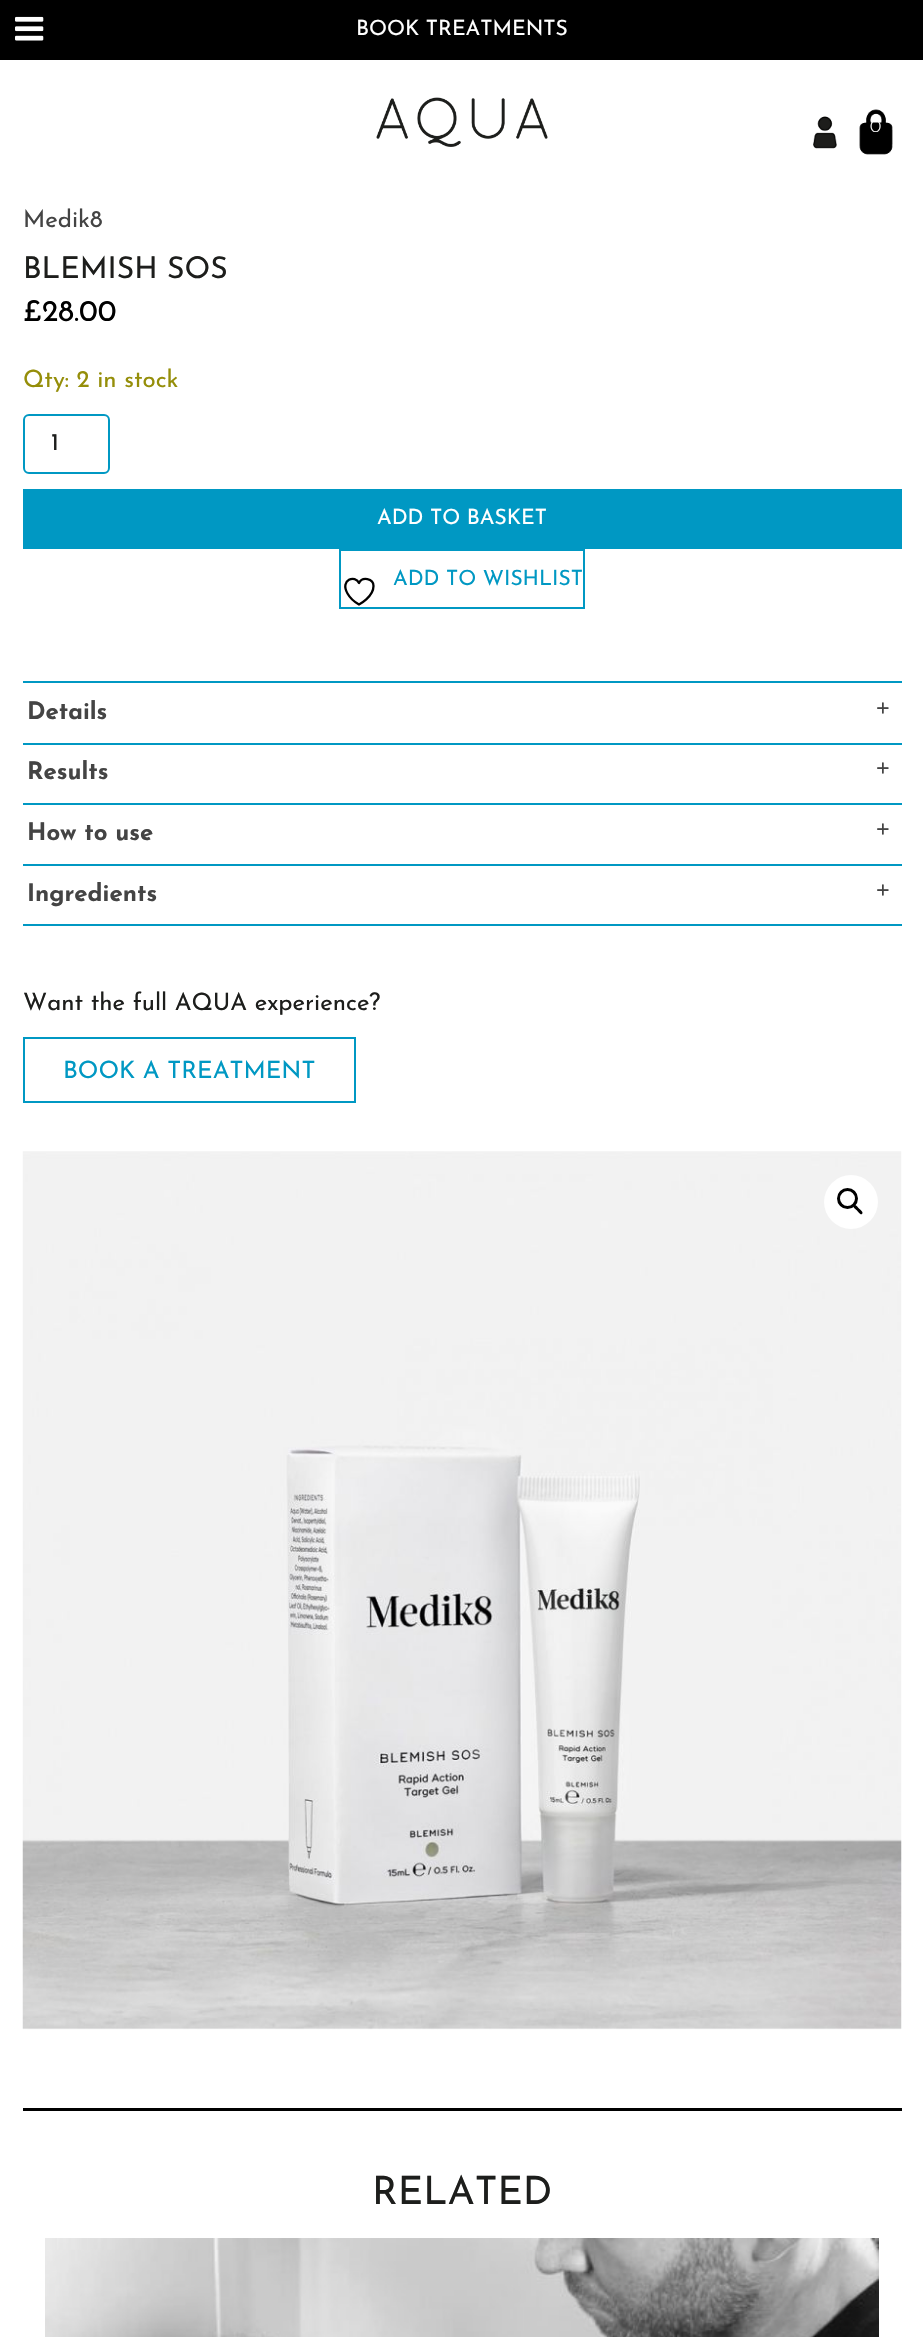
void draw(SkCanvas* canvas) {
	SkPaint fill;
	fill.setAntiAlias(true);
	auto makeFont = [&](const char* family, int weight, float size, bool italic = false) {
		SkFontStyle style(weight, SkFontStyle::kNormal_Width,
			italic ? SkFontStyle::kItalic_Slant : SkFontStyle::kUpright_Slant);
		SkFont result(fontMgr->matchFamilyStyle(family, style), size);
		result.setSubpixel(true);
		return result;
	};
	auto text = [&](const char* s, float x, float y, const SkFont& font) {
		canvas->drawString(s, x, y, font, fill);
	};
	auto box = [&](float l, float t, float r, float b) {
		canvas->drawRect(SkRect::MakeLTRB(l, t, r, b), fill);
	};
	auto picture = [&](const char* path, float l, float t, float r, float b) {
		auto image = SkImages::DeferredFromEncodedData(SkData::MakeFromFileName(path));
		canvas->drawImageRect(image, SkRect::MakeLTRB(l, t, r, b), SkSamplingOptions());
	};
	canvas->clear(0xFFFFFFFF);
	fill.setColor(0xFF000000);
	box(0, 0, 923, 60);
	picture("image0.png", 15, 16, 44, 41);
	picture("image1.png", 376, 97, 548, 147);
	picture("image2.png", 813, 116, 837, 149);
	picture("image3.png", 859, 109, 893, 155);
	fill.setStyle(SkPaint::kStroke_Style);
	fill.setStrokeWidth(2);
	fill.setColor(0xFF0098C3);
	canvas->drawRoundRect(SkRect::MakeLTRB(24, 415, 109, 473), 5, 5, fill);
	fill.setStyle(SkPaint::kFill_Style);
	box(23, 489, 902, 549);
	fill.setStyle(SkPaint::kStroke_Style);
	canvas->drawRect(SkRect::MakeLTRB(340, 550, 584, 608), fill);
	fill.setStrokeWidth(2.3f);
	fill.setStrokeCap(SkPaint::kRound_Cap);
	fill.setStrokeJoin(SkPaint::kRound_Join);
	fill.setColor(0xFF000000);
	canvas->drawPath(SkPathBuilder().moveTo(373.5f, 586).cubicTo(373.5f, 578, 362, 576.5f, 359, 583).cubicTo(355.5f, 574.5f, 339.5f, 579.5f, 347.5f, 593.5f).cubicTo(350, 598, 354.5f, 602, 359, 604.5f).cubicTo(359, 604.5f, 373.5f, 597, 373.5f, 586).close().detach(), fill);
	fill.setStyle(SkPaint::kFill_Style);
	fill.setColor(0xFF0098C3);
	box(23, 681, 902, 683);
	box(23, 743, 902, 745);
	box(23, 803, 902, 805);
	box(23, 864, 902, 866);
	box(23, 924, 902, 926);
	fill.setStyle(SkPaint::kStroke_Style);
	fill.setStrokeWidth(2);
	fill.setStrokeCap(SkPaint::kButt_Cap);
	fill.setStrokeJoin(SkPaint::kMiter_Join);
	canvas->drawRect(SkRect::MakeLTRB(24, 1038, 355, 1102), fill);
	picture("image4.png", 22, 1151, 902, 2030);
	fill.setStyle(SkPaint::kFill_Style);
	fill.setColor(0xFFFFFFFF);
	canvas->drawCircle(851, 1202, 27, fill);
	fill.setStyle(SkPaint::kStroke_Style);
	fill.setStrokeWidth(3);
	fill.setColor(0xFF000000);
	canvas->drawCircle(847.5f, 1198.5f, 9, fill);
	fill.setStyle(SkPaint::kFill_Style);
	canvas->drawPath(SkPathBuilder().moveTo(854, 1205.5f).cubicTo(855.5f, 1203.5f, 858, 1207.5f, 859, 1208.5f).cubicTo(860, 1209.5f, 864, 1212, 862, 1214).cubicTo(860.5f, 1215.5f, 858, 1211.5f, 857, 1210.5f).cubicTo(856, 1209.5f, 852, 1207, 854, 1205.5f).close().detach(), fill);
	box(23, 2108, 902, 2111);
	picture("image5.png", 45, 2238, 879, 2337);
	auto font1 = makeFont("Josefin Sans", 400, 21);
	fill.setColor(0xFFFFFFFF);
	text("BOOK TREATMENTS", 356, 35, font1);
	auto font2 = makeFont("Josefin Sans", 300, 18);
	text("0", 870, 132, font2);
	auto font3 = makeFont("Josefin Sans", 400, 24);
	fill.setColor(0xFF444444);
	text("Medik8", 23, 227, font3);
	auto font4 = makeFont("Josefin Sans", 400, 30);
	fill.setColor(0xFF1D1E1C);
	text("BLEMISH SOS", 23, 278, font4);
	fill.setColor(0xFF000000);
	text("£28.00", 23, 321, font4);
	fill.setColor(0xFF958E09);
	text("Qty: 2 in stock", 23, 387, font3);
	fill.setColor(0xFF1D1E1C);
	text("1", 51, 450, font3);
	fill.setColor(0xFFFFFFFF);
	text("ADD TO BASKET", 377, 524, font1);
	fill.setColor(0xFF0098C3);
	text("ADD TO WISHLIST", 393, 585, font1);
	auto font5 = makeFont("Josefin Sans", 700, 24);
	fill.setColor(0xFF444444);
	text("Details", 27, 719, font5);
	auto font6 = makeFont("Liberation Serif", 700, 24);
	text("+", 876, 716, font6);
	text("Results", 27, 779, font5);
	text("+", 876, 776, font6);
	text("How to use", 27, 840, font5);
	text("+", 876, 837, font6);
	text("Ingredients", 27, 901, font5);
	text("+", 876, 898, font6);
	fill.setColor(0xFF1D1E1C);
	text("Want the full AQUA experience?", 23, 1010, font3);
	fill.setColor(0xFF0098C3);
	text("BOOK A TREATMENT", 63, 1078, font3);
	auto font7 = makeFont("Josefin Sans", 400, 39);
	fill.setColor(0xFF1D1E1C);
	text("RELATED", 372, 2204, font7);
}
